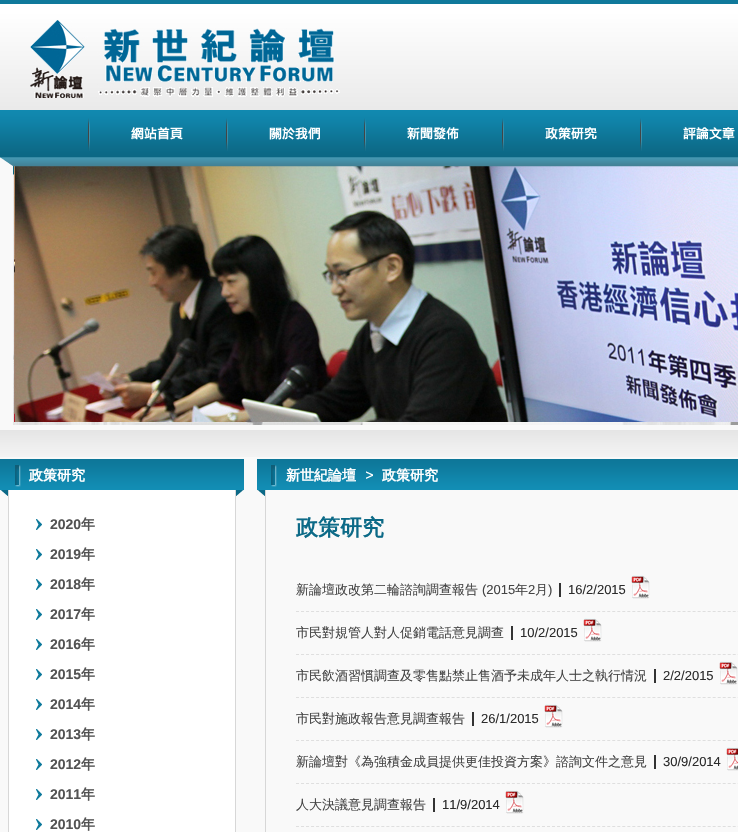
void draw(SkCanvas* canvas) {
	SkPaint fill;
	fill.setAntiAlias(true);
	auto makeFont = [&](const char* family, int weight, float size, bool italic = false) {
		SkFontStyle style(weight, SkFontStyle::kNormal_Width,
			italic ? SkFontStyle::kItalic_Slant : SkFontStyle::kUpright_Slant);
		SkFont result(fontMgr->matchFamilyStyle(family, style), size);
		result.setSubpixel(true);
		return result;
	};
	auto text = [&](const char* s, float x, float y, const SkFont& font) {
		canvas->drawString(s, x, y, font, fill);
	};
	auto box = [&](float l, float t, float r, float b) {
		canvas->drawRect(SkRect::MakeLTRB(l, t, r, b), fill);
	};
	auto picture = [&](const char* path, float l, float t, float r, float b) {
		auto image = SkImages::DeferredFromEncodedData(SkData::MakeFromFileName(path));
		canvas->drawImageRect(image, SkRect::MakeLTRB(l, t, r, b), SkSamplingOptions());
	};
	canvas->clear(0xFFF9F9F9);
	picture("image0.png", 0, 4, 738, 110);
	fill.setColor(0xFF0F799B);
	box(0, 0, 738, 4);
	picture("image1.png", 30, 20, 340, 98);
	picture("image8.png", 13, 166, 738, 425);
	picture("image2.png", 0, 110, 89, 167);
	picture("image3.png", 89, 110, 227, 167);
	picture("image4.png", 227, 110, 365, 167);
	picture("image5.png", 365, 110, 503, 167);
	picture("image6.png", 503, 110, 641, 167);
	picture("image7.png", 641, 110, 738, 167);
	picture("image9.png", 0, 430, 738, 457);
	picture("image10.png", 0, 459, 244, 496);
	fill.setColor(0xFFFFFFFF);
	box(9, 490, 235, 832);
	fill.setColor(0xFFD7D7D7);
	box(235, 490, 236, 832);
	box(8, 490, 9, 832);
	picture("image11.png", 36, 519, 42, 530);
	picture("image11.png", 36, 549, 42, 560);
	picture("image11.png", 36, 579, 42, 590);
	picture("image11.png", 36, 609, 42, 620);
	picture("image11.png", 36, 639, 42, 650);
	picture("image11.png", 36, 669, 42, 680);
	picture("image11.png", 36, 699, 42, 710);
	picture("image11.png", 36, 729, 42, 740);
	picture("image11.png", 36, 759, 42, 770);
	picture("image11.png", 36, 789, 42, 800);
	picture("image11.png", 36, 819, 42, 830);
	picture("image12.png", 257, 459, 738, 496);
	picture("image13.png", 366, 471, 373, 479);
	box(265, 490, 266, 832);
	fill.setStyle(SkPaint::kStroke_Style);
	fill.setStrokeWidth(1);
	fill.setColor(0xFFDFDFDF);
	fill.setPathEffect(SkDashPathEffect::Make({{3, 2.02f}}, 0));
	canvas->drawPath(SkPathBuilder().moveTo(296, 611.5f).lineTo(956, 611.5f).detach(), fill);
	fill.setPathEffect(nullptr);
	fill.setStyle(SkPaint::kFill_Style);
	fill.setColor(0xFF333333);
	box(559, 583, 561, 597);
	picture("image14.png", 631, 575, 650, 599);
	fill.setStyle(SkPaint::kStroke_Style);
	fill.setColor(0xFFDFDFDF);
	fill.setPathEffect(SkDashPathEffect::Make({{3, 2.02f}}, 0));
	canvas->drawPath(SkPathBuilder().moveTo(296, 654.5f).lineTo(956, 654.5f).detach(), fill);
	fill.setPathEffect(nullptr);
	fill.setStyle(SkPaint::kFill_Style);
	fill.setColor(0xFF333333);
	box(511, 626, 513, 640);
	picture("image14.png", 583, 618, 602, 642);
	fill.setStyle(SkPaint::kStroke_Style);
	fill.setColor(0xFFDFDFDF);
	fill.setPathEffect(SkDashPathEffect::Make({{3, 2.02f}}, 0));
	canvas->drawPath(SkPathBuilder().moveTo(296, 697.5f).lineTo(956, 697.5f).detach(), fill);
	fill.setPathEffect(nullptr);
	fill.setStyle(SkPaint::kFill_Style);
	fill.setColor(0xFF333333);
	box(654, 669, 656, 683);
	picture("image14.png", 719, 661, 738, 685);
	fill.setStyle(SkPaint::kStroke_Style);
	fill.setColor(0xFFDFDFDF);
	fill.setPathEffect(SkDashPathEffect::Make({{3, 2.02f}}, 0));
	canvas->drawPath(SkPathBuilder().moveTo(296, 740.5f).lineTo(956, 740.5f).detach(), fill);
	fill.setPathEffect(nullptr);
	fill.setStyle(SkPaint::kFill_Style);
	fill.setColor(0xFF333333);
	box(472, 712, 474, 726);
	picture("image14.png", 544, 704, 563, 728);
	fill.setStyle(SkPaint::kStroke_Style);
	fill.setColor(0xFFDFDFDF);
	fill.setPathEffect(SkDashPathEffect::Make({{3, 2.02f}}, 0));
	canvas->drawPath(SkPathBuilder().moveTo(296, 783.5f).lineTo(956, 783.5f).detach(), fill);
	fill.setPathEffect(nullptr);
	fill.setStyle(SkPaint::kFill_Style);
	fill.setColor(0xFF333333);
	box(654, 755, 656, 769);
	picture("image15.png", 726, 747, 738, 771);
	fill.setStyle(SkPaint::kStroke_Style);
	fill.setColor(0xFFDFDFDF);
	fill.setPathEffect(SkDashPathEffect::Make({{3, 2.02f}}, 0));
	canvas->drawPath(SkPathBuilder().moveTo(296, 826.5f).lineTo(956, 826.5f).detach(), fill);
	fill.setPathEffect(nullptr);
	fill.setStyle(SkPaint::kFill_Style);
	fill.setColor(0xFF333333);
	box(433, 798, 435, 812);
	picture("image14.png", 505, 790, 524, 814);
	auto font1 = makeFont("WenQuanYi Zen Hei", 700, 14);
	fill.setColor(0xFFFFFFFF);
	text("政策研究", 29, 480, font1);
	auto font2 = makeFont("Liberation Sans", 700, 14);
	fill.setColor(0xFF535353);
	text("2020", 50, 529, font2);
	text("年", 81, 529, font1);
	text("2019", 50, 559, font2);
	text("年", 81, 559, font1);
	text("2018", 50, 589, font2);
	text("年", 81, 589, font1);
	text("2017", 50, 619, font2);
	text("年", 81, 619, font1);
	text("2016", 50, 649, font2);
	text("年", 81, 649, font1);
	text("2015", 50, 679, font2);
	text("年", 81, 679, font1);
	text("2014", 50, 709, font2);
	text("年", 81, 709, font1);
	text("2013", 50, 739, font2);
	text("年", 81, 739, font1);
	text("2012", 50, 769, font2);
	text("年", 81, 769, font1);
	text("2011", 50, 799, font2);
	text("年", 81, 799, font1);
	text("2010", 50, 829, font2);
	text("年", 81, 829, font1);
	fill.setColor(0xFFFFFFFF);
	text("新世紀論壇", 286, 480, font1);
	text("政策研究", 382, 480, font1);
	auto font3 = makeFont("WenQuanYi Zen Hei", 700, 22);
	fill.setColor(0xFF0C6A87);
	text("政策研究", 296, 535, font3);
	auto font4 = makeFont("WenQuanYi Zen Hei", 500, 13);
	fill.setColor(0xFF444444);
	text("新論壇政改第二輪諮詢調查報告", 296, 594, font4);
	auto font5 = makeFont("Liberation Sans", 400, 13);
	text("(2015", 482, 594, font5);
	text("年", 515, 594, font4);
	text("2", 528, 594, font5);
	text("月", 535, 594, font4);
	text(")", 548, 594, font5);
	fill.setColor(0xFF2C2C2C);
	text("16/2/2015", 568, 594, font5);
	fill.setColor(0xFF444444);
	text("市民對規管人對人促銷電話意見調查", 296, 637, font4);
	fill.setColor(0xFF2C2C2C);
	text("10/2/2015", 520, 637, font5);
	fill.setColor(0xFF444444);
	text("市民飲酒習慣調查及零售點禁止售酒予未成年人士之執行情況", 296, 680, font4);
	fill.setColor(0xFF2C2C2C);
	text("2/2/2015", 663, 680, font5);
	fill.setColor(0xFF444444);
	text("市民對施政報告意見調查報告", 296, 723, font4);
	fill.setColor(0xFF2C2C2C);
	text("26/1/2015", 481, 723, font5);
	fill.setColor(0xFF444444);
	text("新論壇對《為強積金成員提供更佳投資方案》諮詢文件之意見", 296, 766, font4);
	fill.setColor(0xFF2C2C2C);
	text("30/9/2014", 663, 766, font5);
	fill.setColor(0xFF444444);
	text("人大決議意見調查報告", 296, 809, font4);
	fill.setColor(0xFF2C2C2C);
	text("11/9/2014", 442, 809, font5);
}
